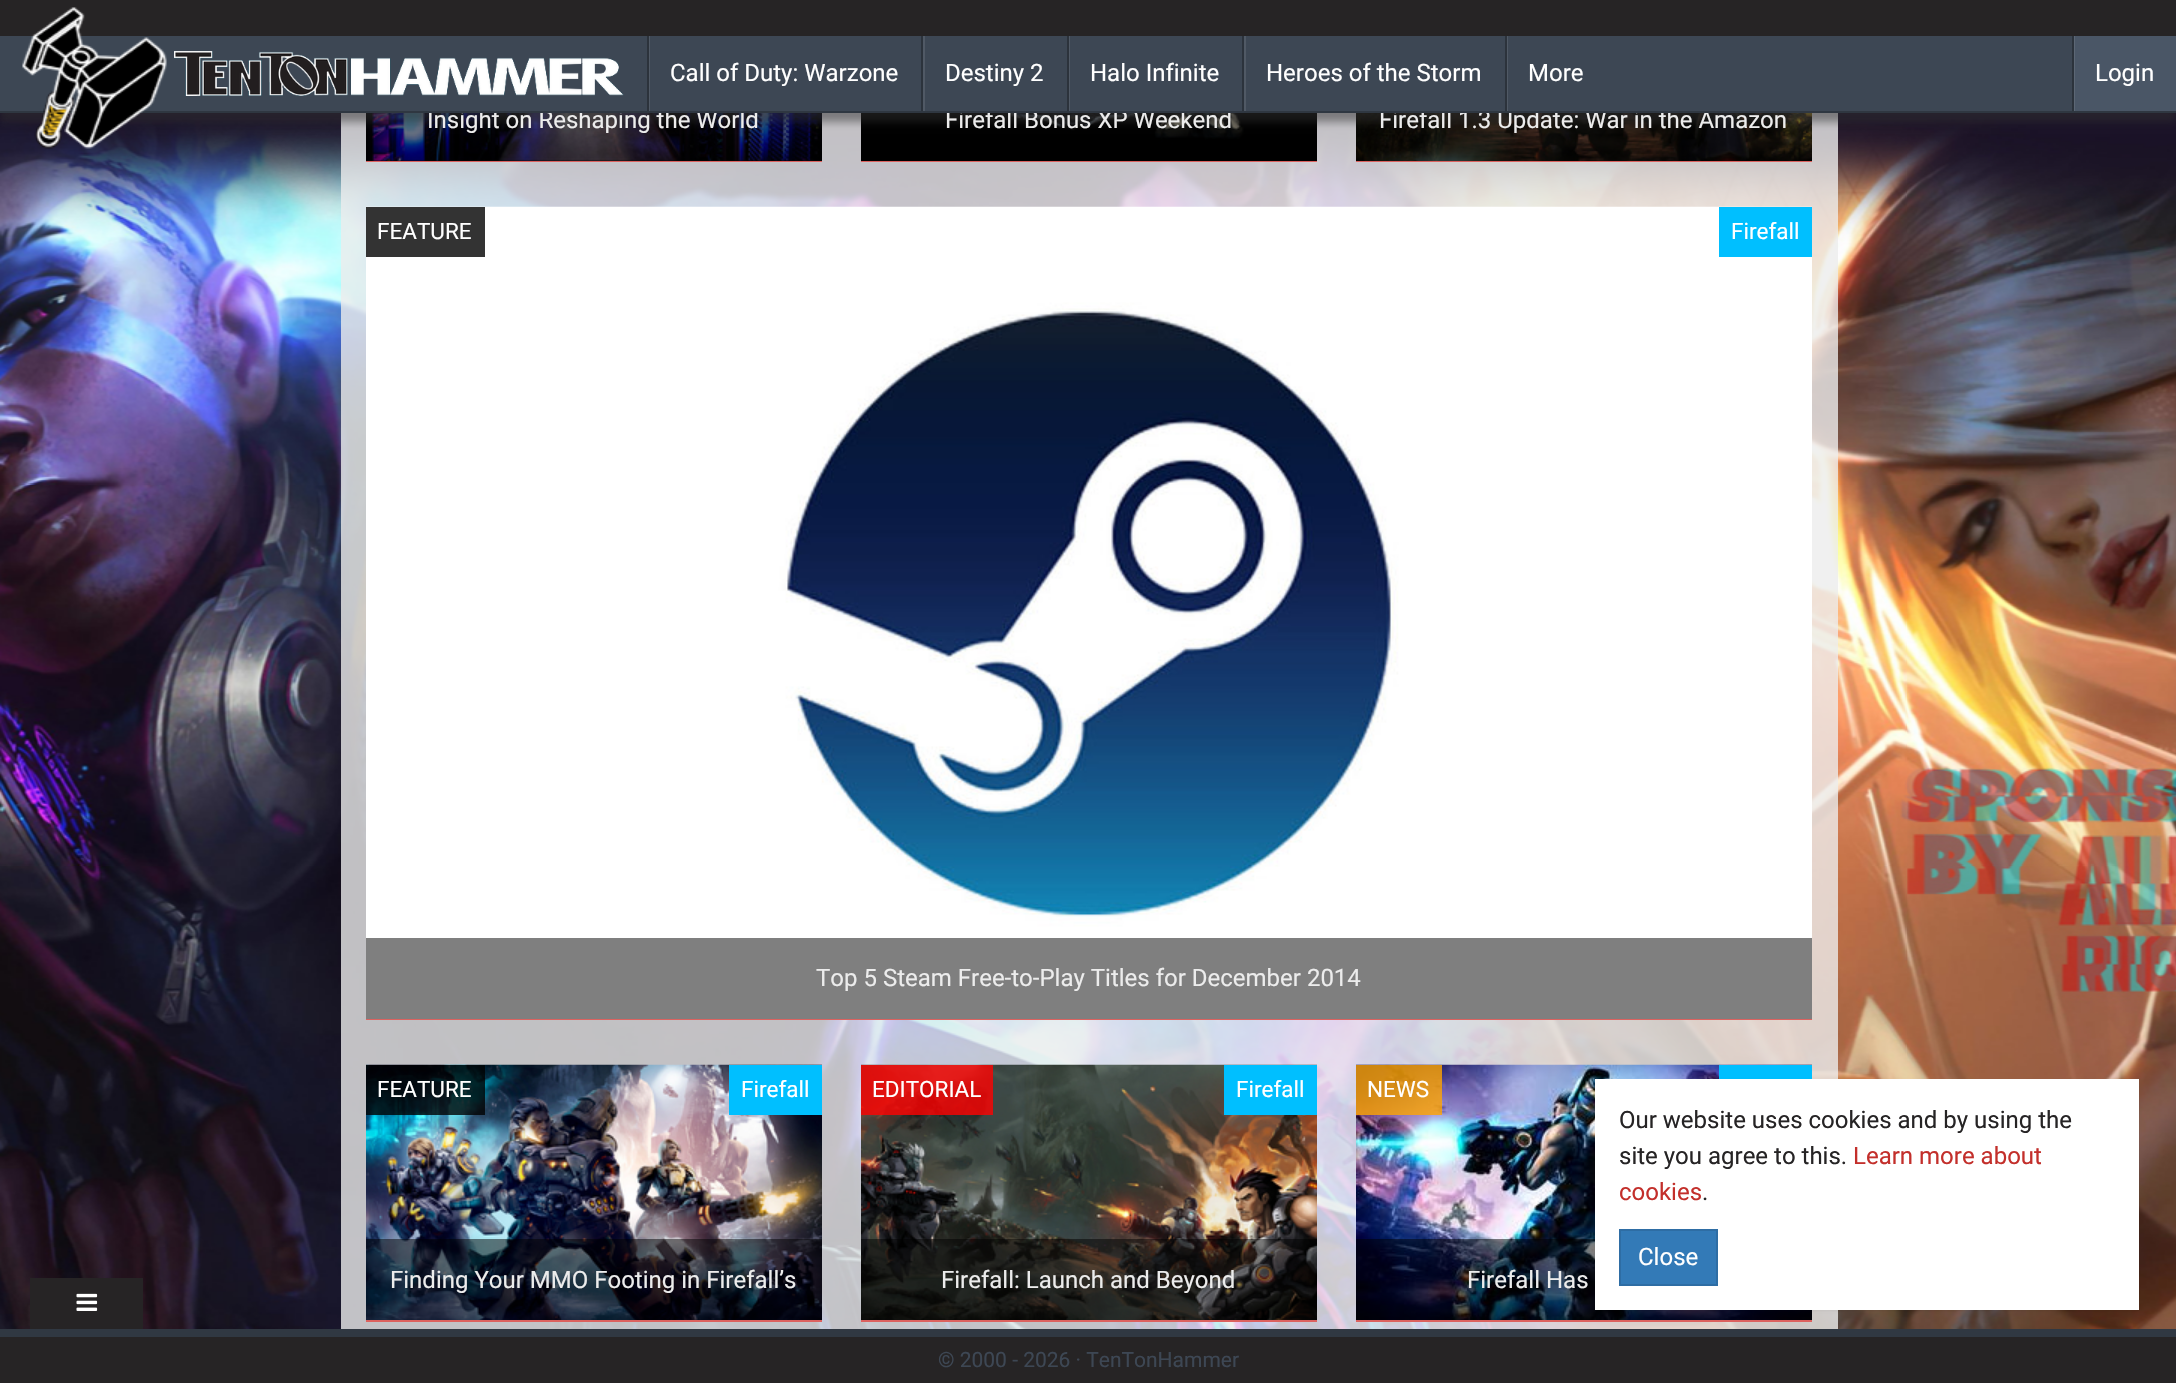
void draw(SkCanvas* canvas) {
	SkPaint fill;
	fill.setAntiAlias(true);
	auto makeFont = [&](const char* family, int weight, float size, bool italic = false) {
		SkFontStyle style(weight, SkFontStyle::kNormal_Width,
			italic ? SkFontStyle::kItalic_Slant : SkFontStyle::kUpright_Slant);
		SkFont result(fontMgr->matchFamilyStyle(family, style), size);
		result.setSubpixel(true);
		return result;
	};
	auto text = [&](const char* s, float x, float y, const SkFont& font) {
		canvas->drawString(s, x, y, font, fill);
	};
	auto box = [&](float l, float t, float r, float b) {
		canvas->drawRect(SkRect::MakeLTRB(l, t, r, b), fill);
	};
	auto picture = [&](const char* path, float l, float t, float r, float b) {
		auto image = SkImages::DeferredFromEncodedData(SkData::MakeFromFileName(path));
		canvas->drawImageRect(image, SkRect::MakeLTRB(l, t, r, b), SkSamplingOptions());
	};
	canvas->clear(0xFF1A1226);
	picture("image9.png", 0, 118, 2176, 1329);
	fill.setColor(0xCCECECEC);
	box(341, 113, 1838, 1329);
	picture("image2.png", 366, 113, 822, 161);
	fill.setColor(0x80000000);
	box(366, 113, 822, 161);
	picture("image3.png", 861, 113, 1317, 161);
	box(1008, 113, 1244, 138);
	picture("image4.png", 1356, 113, 1812, 161);
	box(1356, 113, 1812, 161);
	fill.setColor(0x80323232);
	fill.setMaskFilter(SkMaskFilter::MakeBlur(kNormal_SkBlurStyle, 4));
	canvas->drawRect(SkRect::MakeLTRB(0, 9, 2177, 122), fill);
	fill.setMaskFilter(nullptr);
	fill.setColor(0xFF262425);
	box(0, 0, 2176, 36);
	fill.setColor(0xFF4A5666);
	box(2075, 36, 2176, 111);
	fill.setColor(0xFF5C6775);
	box(2074, 36, 2075, 111);
	fill.setColor(0xFF2C333C);
	box(2072, 36, 2074, 111);
	fill.setColor(0xFFDC625F);
	box(366, 161, 822, 162);
	box(861, 161, 1317, 162);
	box(1356, 161, 1812, 162);
	picture("image5.png", 366, 206, 1812, 1019);
	fill.setColor(0xFF333333);
	box(366, 207, 485, 257);
	fill.setColor(0xFF00BFFF);
	box(1719, 207, 1812, 257);
	fill.setColor(0x80000000);
	box(366, 938, 1812, 1019);
	fill.setColor(0xFFDC625F);
	box(366, 1019, 1812, 1020);
	picture("image6.png", 366, 1064, 822, 1320);
	fill.setColor(0xCC000000);
	box(366, 1065, 485, 1115);
	fill.setColor(0xFF00BFFF);
	box(729, 1065, 822, 1115);
	fill.setColor(0x80000000);
	box(366, 1239, 822, 1320);
	fill.setColor(0xFFDC625F);
	box(366, 1320, 822, 1322);
	picture("image7.png", 861, 1064, 1317, 1320);
	fill.setColor(0xCCFF0000);
	box(861, 1065, 993, 1115);
	fill.setColor(0xFF00BFFF);
	box(1224, 1065, 1317, 1115);
	fill.setColor(0x80000000);
	box(861, 1239, 1317, 1320);
	fill.setColor(0xFFDC625F);
	box(861, 1320, 1317, 1322);
	picture("image8.png", 1356, 1064, 1812, 1320);
	fill.setColor(0xFF00BFFF);
	box(1719, 1065, 1812, 1079);
	fill.setColor(0xCCFFA500);
	box(1356, 1065, 1442, 1115);
	fill.setColor(0x80000000);
	box(1356, 1239, 1812, 1320);
	fill.setColor(0xFFDC625F);
	box(1356, 1320, 1812, 1322);
	fill.setColor(0xFF303842);
	box(0, 1329, 2176, 1337);
	fill.setColor(0x0D000000);
	fill.setMaskFilter(SkMaskFilter::MakeBlur(kNormal_SkBlurStyle, 1));
	canvas->drawRect(SkRect::MakeLTRB(1595, 1080, 2139, 1311), fill);
	fill.setMaskFilter(nullptr);
	fill.setColor(0xFFFFFFFF);
	box(1595, 1079, 2139, 1310);
	fill.setColor(0xFF337AB7);
	canvas->drawRect(SkRect::MakeLTRB(1620, 1230, 1717, 1285), fill);
	fill.setStyle(SkPaint::kStroke_Style);
	fill.setStrokeWidth(2);
	fill.setColor(0xFF2E6DA4);
	canvas->drawRect(SkRect::MakeLTRB(1620, 1230, 1717, 1285), fill);
	fill.setStyle(SkPaint::kFill_Style);
	fill.setColor(0xFF262425);
	box(30, 1278, 143, 1329);
	picture("image10.png", 76, 1293, 98, 1311);
	box(0, 1337, 2176, 1383);
	auto font1 = makeFont("Roboto", 400, 24);
	fill.setColor(0xFFFFFFFF);
	text("Login", 2095, 81, font1);
	fill.setColor(0xFFECECEC);
	text("Insight on Reshaping the World", 427, 128, font1);
	text("Firefall Bonus XP Weekend", 945, 128, font1);
	text("Firefall 1.3 Update: War in the Amazon", 1379, 128, font1);
	fill.setColor(0xFF2F3741);
	box(0, 111, 2176, 113);
	fill.setColor(0xFF3D4754);
	box(0, 36, 2072, 111);
	picture("image0.png", 22, 7, 167, 149);
	fill.setColor(0xFFFFFFFF);
	text("More", 1528, 81, font1);
	fill.setColor(0xFF2C333C);
	box(1505, 36, 1507, 111);
	fill.setColor(0xFF505965);
	box(1507, 36, 1508, 111);
	fill.setColor(0xFFFFFFFF);
	text("Heroes of the Storm", 1266, 81, font1);
	fill.setColor(0xFF2C333C);
	box(1242, 36, 1244, 111);
	fill.setColor(0xFF505965);
	box(1244, 36, 1246, 111);
	fill.setColor(0xFFFFFFFF);
	text("Halo Infinite", 1090, 81, font1);
	fill.setColor(0xFF2C333C);
	box(1067, 36, 1069, 111);
	fill.setColor(0xFF505965);
	box(1069, 36, 1070, 111);
	fill.setColor(0xFFFFFFFF);
	text("Destiny 2", 945, 81, font1);
	fill.setColor(0xFF2C333C);
	box(921, 36, 923, 111);
	fill.setColor(0xFF505965);
	box(923, 36, 925, 111);
	fill.setColor(0xFFFFFFFF);
	text("Call of Duty: Warzone", 670, 81, font1);
	fill.setColor(0xFF2C333C);
	box(647, 36, 649, 111);
	fill.setColor(0xFF505965);
	box(649, 36, 650, 111);
	picture("image1.png", 174, 51, 624, 96);
	auto font2 = makeFont("Roboto", 400, 22.5f);
	fill.setColor(0xFFFFFFFF);
	text("FEATURE", 377, 239, font2);
	text("Firefall", 1731, 239, font2);
	fill.setColor(0xFFECECEC);
	text("Top 5 Steam Free-to-Play Titles for December 2014", 816, 986, font1);
	fill.setColor(0xFFFFFFFF);
	text("FEATURE", 377, 1097, font2);
	text("Firefall", 741, 1097, font2);
	fill.setColor(0xFFECECEC);
	text("Finding Your MMO Footing in Firefall’s", 390, 1288, font1);
	fill.setColor(0xFFFFFFFF);
	text("EDITORIAL", 872, 1097, font2);
	text("Firefall", 1236, 1097, font2);
	fill.setColor(0xFFECECEC);
	text("Firefall: Launch and Beyond", 941, 1288, font1);
	fill.setColor(0xFFFFFFFF);
	text("NEWS", 1367, 1097, font2);
	fill.setColor(0xFFECECEC);
	text("Firefall Has", 1467, 1288, font1);
	fill.setColor(0xFF262425);
	text("Our website uses cookies and by using the", 1619, 1128, font1);
	text("site you agree to this.", 1619, 1164, font1);
	fill.setColor(0xFFC32F2B);
	text("Learn more about", 1853, 1164, font1);
	text("cookies", 1619, 1200, font1);
	fill.setColor(0xFF262425);
	text(".", 1702, 1200, font1);
	fill.setColor(0xFFFFFFFF);
	text("Close", 1638, 1265, font1);
	auto font3 = makeFont("Roboto", 400, 21);
	fill.setColor(0xFF3D4754);
	text("© 2000 - 2026 · TenTonHammer", 938, 1367, font3);
}
